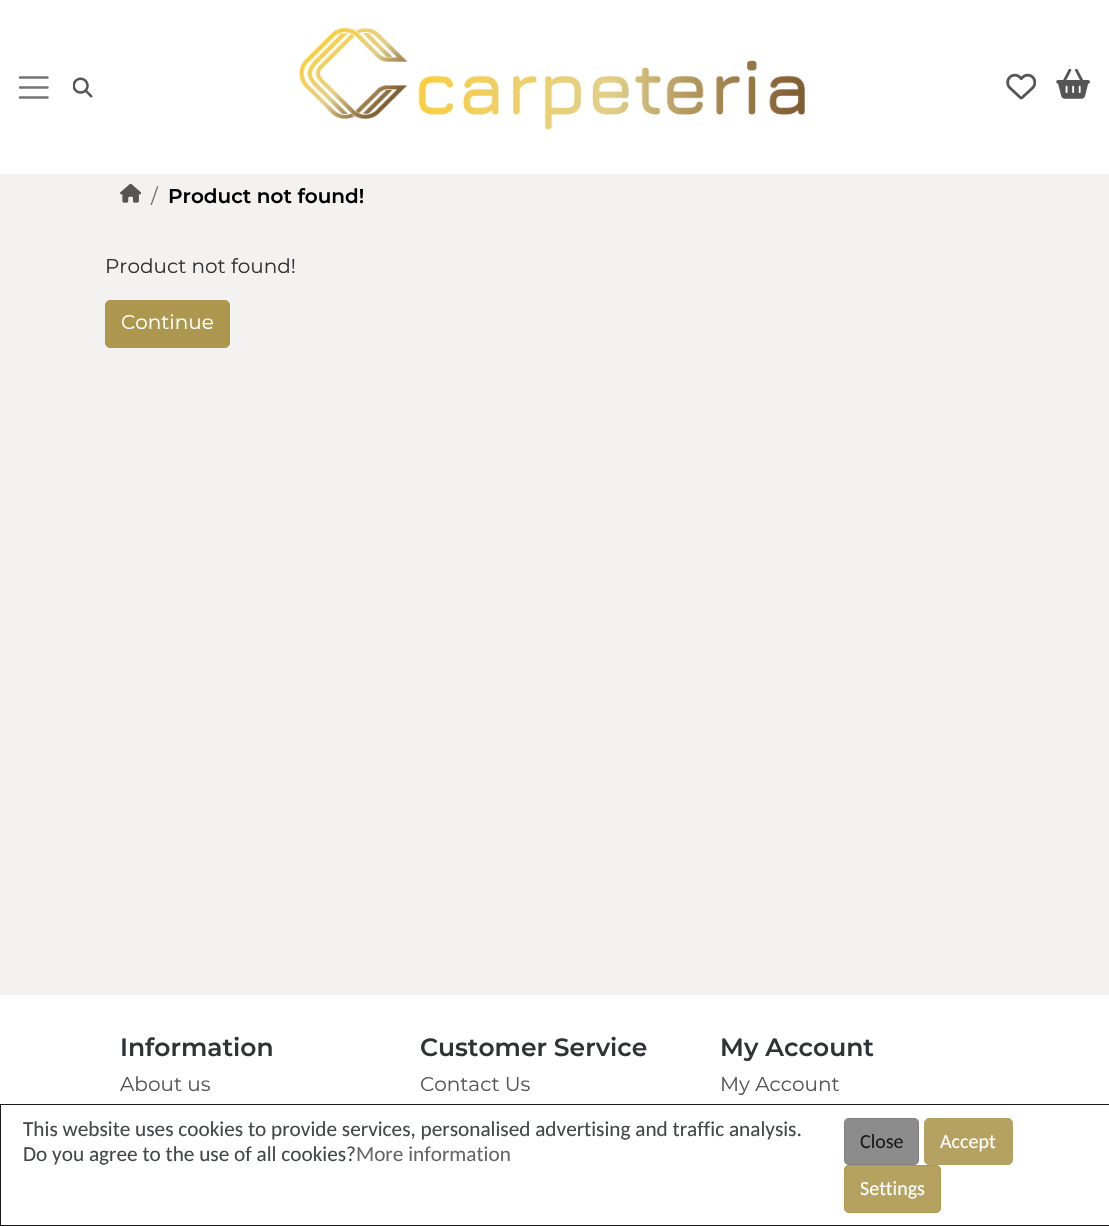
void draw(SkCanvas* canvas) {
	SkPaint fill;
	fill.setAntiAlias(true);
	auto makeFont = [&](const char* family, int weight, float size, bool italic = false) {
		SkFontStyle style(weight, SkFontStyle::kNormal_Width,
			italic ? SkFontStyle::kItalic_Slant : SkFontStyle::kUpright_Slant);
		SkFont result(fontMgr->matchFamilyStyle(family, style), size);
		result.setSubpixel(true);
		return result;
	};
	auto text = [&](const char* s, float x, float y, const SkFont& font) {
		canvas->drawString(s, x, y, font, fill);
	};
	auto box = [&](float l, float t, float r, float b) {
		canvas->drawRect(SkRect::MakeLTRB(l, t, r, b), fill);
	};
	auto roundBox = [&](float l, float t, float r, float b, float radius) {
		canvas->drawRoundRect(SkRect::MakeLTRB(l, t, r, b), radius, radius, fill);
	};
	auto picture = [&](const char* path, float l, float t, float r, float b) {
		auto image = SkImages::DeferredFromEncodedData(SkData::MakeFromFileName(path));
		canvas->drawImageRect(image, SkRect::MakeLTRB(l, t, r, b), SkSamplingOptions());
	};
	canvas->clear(0xFFFFFFFF);
	fill.setStyle(SkPaint::kStroke_Style);
	fill.setStrokeWidth(2.5f);
	fill.setStrokeCap(SkPaint::kRound_Cap);
	fill.setColor(0xFF737373);
	canvas->drawPath(SkPathBuilder().moveTo(20, 77.5f).lineTo(47.5f, 77.5f).moveTo(20, 87.5f).lineTo(47.5f, 87.5f).moveTo(20, 97.5f).lineTo(47.5f, 97.5f).detach(), fill);
	picture("image0.png", 73, 77, 93, 98);
	picture("image1.png", 299, 27, 805, 130);
	picture("image2.png", 1006, 73, 1036, 100);
	picture("image3.png", 1056, 69, 1090, 99);
	fill.setStyle(SkPaint::kFill_Style);
	fill.setColor(0xFFF3F2F0);
	box(0, 174, 1109, 995);
	picture("image4.png", 120, 184, 141, 203);
	fill.setColor(0xFFAD974F);
	canvas->drawRoundRect(SkRect::MakeLTRB(105.5f, 300.5f, 229.5f, 347.5f), 4.5f, 4.5f, fill);
	fill.setStyle(SkPaint::kStroke_Style);
	fill.setStrokeWidth(1);
	fill.setStrokeCap(SkPaint::kButt_Cap);
	canvas->drawRoundRect(SkRect::MakeLTRB(105.5f, 300.5f, 229.5f, 347.5f), 4.5f, 4.5f, fill);
	fill.setColor(0xE6000000);
	canvas->drawRect(SkRect::MakeLTRB(0.5f, 1104.5f, 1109.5f, 1225.5f), fill);
	fill.setStyle(SkPaint::kFill_Style);
	fill.setColor(0xE6808080);
	roundBox(844, 1118, 919, 1165, 5);
	fill.setStyle(SkPaint::kStroke_Style);
	canvas->drawRoundRect(SkRect::MakeLTRB(844.5f, 1118.5f, 918.5f, 1164.5f), 4.5f, 4.5f, fill);
	fill.setStyle(SkPaint::kFill_Style);
	fill.setColor(0xFFB5A161);
	canvas->drawRoundRect(SkRect::MakeLTRB(924.5f, 1118.5f, 1012.5f, 1164.5f), 4.5f, 4.5f, fill);
	fill.setStyle(SkPaint::kStroke_Style);
	canvas->drawRoundRect(SkRect::MakeLTRB(924.5f, 1118.5f, 1012.5f, 1164.5f), 4.5f, 4.5f, fill);
	fill.setStyle(SkPaint::kFill_Style);
	fill.setColor(0xE6AD974F);
	roundBox(844, 1165, 941, 1213, 5);
	fill.setStyle(SkPaint::kStroke_Style);
	canvas->drawRoundRect(SkRect::MakeLTRB(844.5f, 1165.5f, 940.5f, 1212.5f), 4.5f, 4.5f, fill);
	auto font1 = makeFont("Montserrat", 400, 20);
	fill.setStyle(SkPaint::kFill_Style);
	fill.setColor(0xFF6C757D);
	text("/", 151, 203, font1);
	auto font2 = makeFont("Montserrat", 600, 20);
	fill.setColor(0xFF000000);
	text("Product not found!", 168, 203, font2);
	fill.setColor(0xFF313437);
	text("Product not found!", 105, 273, font1);
	fill.setColor(0xFFFFFFFF);
	text("Continue", 121, 329, font1);
	auto font3 = makeFont("Montserrat", 600, 25);
	fill.setColor(0xFF313437);
	text("Information", 120, 1056, font3);
	fill.setColor(0xFF555555);
	text("About us", 120, 1091, font1);
	fill.setColor(0xFF313437);
	text("Customer Service", 420, 1056, font3);
	fill.setColor(0xFF555555);
	text("Contact Us", 420, 1091, font1);
	fill.setColor(0xFF313437);
	text("My Account", 720, 1056, font3);
	fill.setColor(0xFF555555);
	text("My Account", 720, 1091, font1);
	auto font4 = makeFont("Carlito", 400, 21.25f);
	fill.setColor(0xFF45484B);
	text("This website uses cookies to provide services, personalised advertising and traffic analysis.", 23, 1136, font4);
	text("Do you agree to the use of all cookies?", 23, 1161, font4);
	fill.setColor(0xFF666666);
	text("More information", 356, 1161, font4);
	auto font5 = makeFont("Carlito", 400, 20);
	fill.setColor(0xFF1A1A1A);
	text("Close", 860, 1148, font5);
	fill.setColor(0xFFFFFFFF);
	text("Accept", 940, 1148, font5);
	text("Settings", 860, 1195, font5);
}
